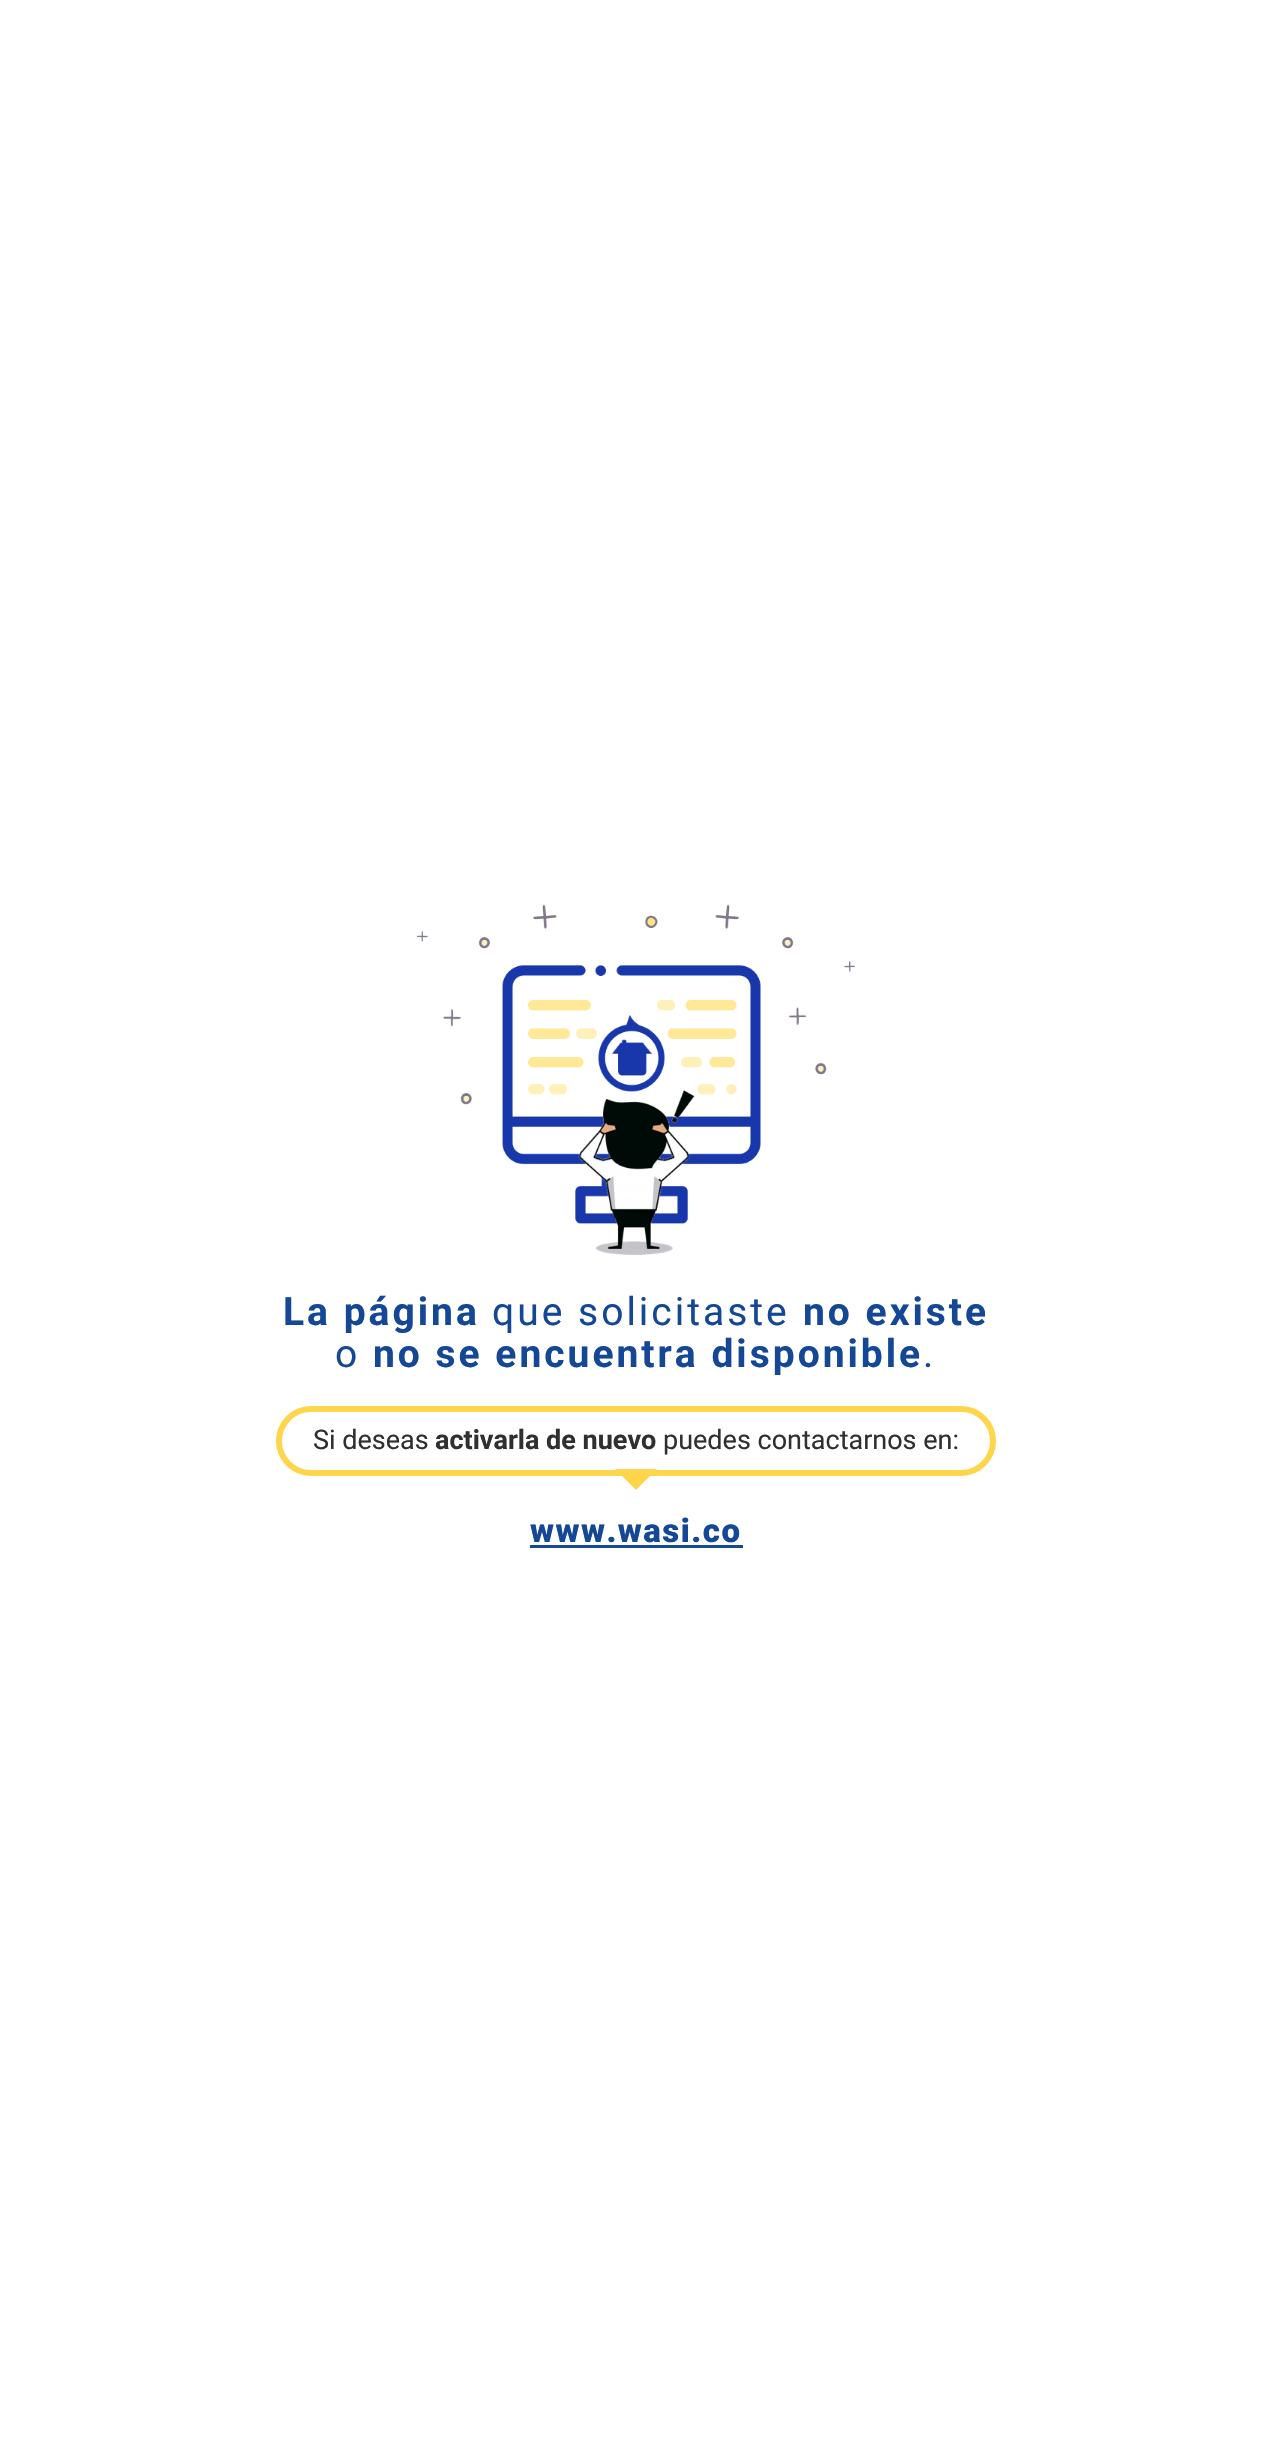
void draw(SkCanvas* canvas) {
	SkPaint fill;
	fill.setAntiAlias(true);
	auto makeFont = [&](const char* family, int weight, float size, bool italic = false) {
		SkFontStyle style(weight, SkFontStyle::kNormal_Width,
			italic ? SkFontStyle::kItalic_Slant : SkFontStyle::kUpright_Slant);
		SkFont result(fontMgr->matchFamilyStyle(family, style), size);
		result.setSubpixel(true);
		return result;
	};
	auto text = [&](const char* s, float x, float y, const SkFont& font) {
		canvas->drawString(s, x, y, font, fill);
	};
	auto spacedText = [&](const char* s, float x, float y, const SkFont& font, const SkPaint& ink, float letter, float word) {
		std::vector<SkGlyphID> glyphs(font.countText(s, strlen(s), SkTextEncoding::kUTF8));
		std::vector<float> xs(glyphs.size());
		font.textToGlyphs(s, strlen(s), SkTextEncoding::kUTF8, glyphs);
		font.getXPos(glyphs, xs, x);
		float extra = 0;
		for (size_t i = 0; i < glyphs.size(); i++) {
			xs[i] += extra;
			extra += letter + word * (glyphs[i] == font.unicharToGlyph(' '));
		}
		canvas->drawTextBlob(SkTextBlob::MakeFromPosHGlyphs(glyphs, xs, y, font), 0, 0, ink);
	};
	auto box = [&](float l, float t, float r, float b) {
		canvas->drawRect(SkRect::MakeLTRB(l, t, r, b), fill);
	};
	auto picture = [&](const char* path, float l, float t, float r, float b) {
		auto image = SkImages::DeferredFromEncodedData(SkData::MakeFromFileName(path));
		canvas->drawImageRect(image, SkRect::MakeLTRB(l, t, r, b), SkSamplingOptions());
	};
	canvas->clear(0xFFFFFFFF);
	picture("image0.png", 417, 904, 855, 1255);
	fill.setStyle(SkPaint::kStroke_Style);
	fill.setStrokeWidth(6);
	fill.setColor(0xFFFFD54B);
	canvas->drawRoundRect(SkRect::MakeLTRB(279, 1409, 993, 1473), 32, 32, fill);
	fill.setStyle(SkPaint::kFill_Style);
	canvas->drawPath(SkPathBuilder().moveTo(615, 1469).lineTo(657, 1469).lineTo(636, 1490).close().detach(), fill);
	fill.setColor(0xFF144796);
	box(530, 1545, 743, 1548);
	auto font1 = makeFont("Roboto", 700, 39);
	spacedText("La página", 283, 1325, font1, fill, 3, 0);
	auto font2 = makeFont("Roboto", 400, 39);
	spacedText("que solicitaste", 492, 1325, font2, fill, 3, 0);
	spacedText("no existe", 803, 1325, font1, fill, 3, 0);
	spacedText("o", 335, 1367, font2, fill, 3, 0);
	spacedText("no se encuentra disponible", 373, 1367, font1, fill, 3, 0);
	spacedText(".", 923, 1367, font2, fill, 3, 0);
	auto font3 = makeFont("Roboto", 400, 27);
	fill.setColor(0xFF303030);
	text("Si deseas", 313, 1449, font3);
	auto font4 = makeFont("Roboto", 700, 27);
	text("activarla de nuevo", 435, 1449, font4);
	text("puedes contactarnos en:", 663, 1449, font3);
	auto font5 = makeFont("Roboto", 900, 33);
	fill.setColor(0xFF144796);
	spacedText("www.wasi.co", 530, 1542, font5, fill, 1.5f, 0);
}
